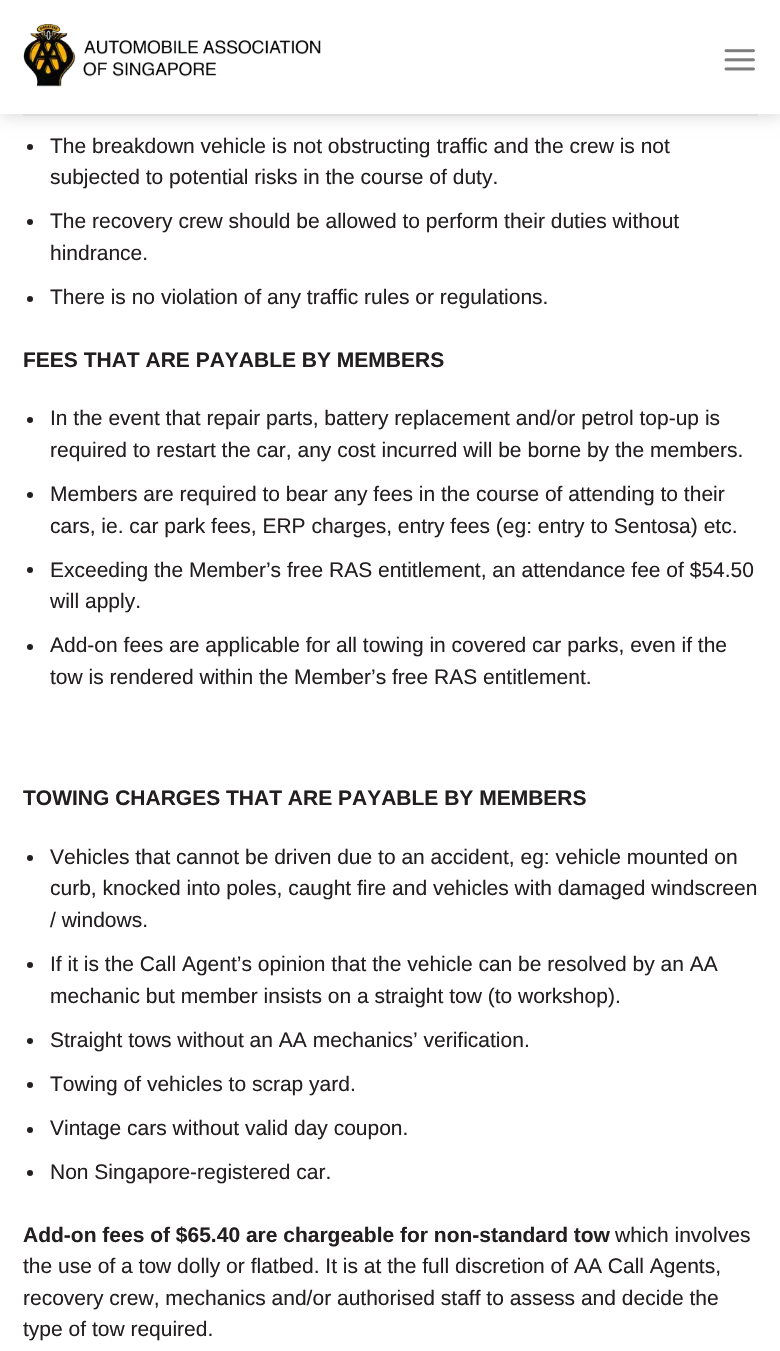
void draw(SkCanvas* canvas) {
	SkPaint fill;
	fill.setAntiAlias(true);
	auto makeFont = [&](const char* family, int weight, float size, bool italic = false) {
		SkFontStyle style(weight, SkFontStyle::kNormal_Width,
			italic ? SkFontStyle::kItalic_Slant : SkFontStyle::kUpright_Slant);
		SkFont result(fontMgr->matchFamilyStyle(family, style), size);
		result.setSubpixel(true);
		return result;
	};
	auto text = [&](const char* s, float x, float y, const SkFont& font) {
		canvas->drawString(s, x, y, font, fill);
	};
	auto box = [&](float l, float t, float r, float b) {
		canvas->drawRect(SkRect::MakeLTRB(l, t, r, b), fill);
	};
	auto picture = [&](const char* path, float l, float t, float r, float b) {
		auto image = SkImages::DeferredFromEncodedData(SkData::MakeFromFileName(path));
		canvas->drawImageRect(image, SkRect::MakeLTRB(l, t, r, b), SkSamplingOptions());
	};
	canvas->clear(0xFFFFFFFF);
	fill.setColor(0x26000000);
	fill.setMaskFilter(SkMaskFilter::MakeBlur(kNormal_SkBlurStyle, 7.5f));
	canvas->drawRect(SkRect::MakeLTRB(2, 2, 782, 116), fill);
	fill.setMaskFilter(nullptr);
	fill.setColor(0xFFFFFFFF);
	box(0, 0, 780, 114);
	picture("image0.png", 23, 24, 321, 87);
	picture("image1.png", 724, 49, 755, 71);
	fill.setColor(0xFFDEDEDE);
	box(23, 114, 758, 116);
	fill.setColor(0xFF231F20);
	canvas->drawCircle(30, 147, 3, fill);
	canvas->drawCircle(30, 222, 3, fill);
	canvas->drawCircle(30, 299, 3, fill);
	canvas->drawCircle(30, 420, 3, fill);
	canvas->drawCircle(30, 495, 3, fill);
	canvas->drawCircle(30, 570, 3, fill);
	canvas->drawCircle(30, 647, 3, fill);
	canvas->drawCircle(30, 858, 3, fill);
	canvas->drawCircle(30, 965, 3, fill);
	canvas->drawCircle(30, 1041, 3, fill);
	canvas->drawCircle(30, 1085, 3, fill);
	canvas->drawCircle(30, 1130, 3, fill);
	canvas->drawCircle(30, 1173, 3, fill);
	auto font1 = makeFont("Liberation Sans", 400, 21);
	text("The breakdown vehicle is not obstructing traffic and the crew is not", 50, 153, font1);
	text("subjected to potential risks in the course of duty.", 50, 184, font1);
	text("The recovery crew should be allowed to perform their duties without", 50, 228, font1);
	text("hindrance.", 50, 260, font1);
	text("There is no violation of any traffic rules or regulations.", 50, 304, font1);
	auto font2 = makeFont("Liberation Sans", 700, 21);
	text("FEES THAT ARE PAYABLE BY MEMBERS", 23, 367, font2);
	text("In the event that repair parts, battery replacement and/or petrol top-up is", 50, 425, font1);
	text("required to restart the car, any cost incurred will be borne by the members.", 50, 457, font1);
	text("Members are required to bear any fees in the course of attending to their", 50, 501, font1);
	text("cars, ie. car park fees, ERP charges, entry fees (eg: entry to Sentosa) etc.", 50, 533, font1);
	text("Exceeding the Member’s free RAS entitlement, an attendance fee of $54.50", 50, 577, font1);
	text("will apply.", 50, 608, font1);
	text("Add-on fees are applicable for all towing in covered car parks, even if the", 50, 652, font1);
	text("tow is rendered within the Member’s free RAS entitlement.", 50, 684, font1);
	text("TOWING CHARGES THAT ARE PAYABLE BY MEMBERS", 23, 805, font2);
	text("Vehicles that cannot be driven due to an accident, eg: vehicle mounted on", 50, 864, font1);
	text("curb, knocked into poles, caught fire and vehicles with damaged windscreen", 50, 895, font1);
	text("/ windows.", 50, 927, font1);
	text("If it is the Call Agent’s opinion that the vehicle can be resolved by an AA", 50, 971, font1);
	text("mechanic but member insists on a straight tow (to workshop).", 50, 1003, font1);
	text("Straight tows without an AA mechanics’ verification.", 50, 1047, font1);
	text("Towing of vehicles to scrap yard.", 50, 1091, font1);
	text("Vintage cars without valid day coupon.", 50, 1135, font1);
	text("Non Singapore-registered car.", 50, 1179, font1);
	text("Add-on fees of $65.40 are chargeable for non-standard tow", 23, 1242, font2);
	text("which involves", 615, 1242, font1);
	text("the use of a tow dolly or flatbed. It is at the full discretion of AA Call Agents,", 23, 1273, font1);
	text("recovery crew, mechanics and/or authorised staff to assess and decide the", 23, 1305, font1);
	text("type of tow required.", 23, 1336, font1);
}
